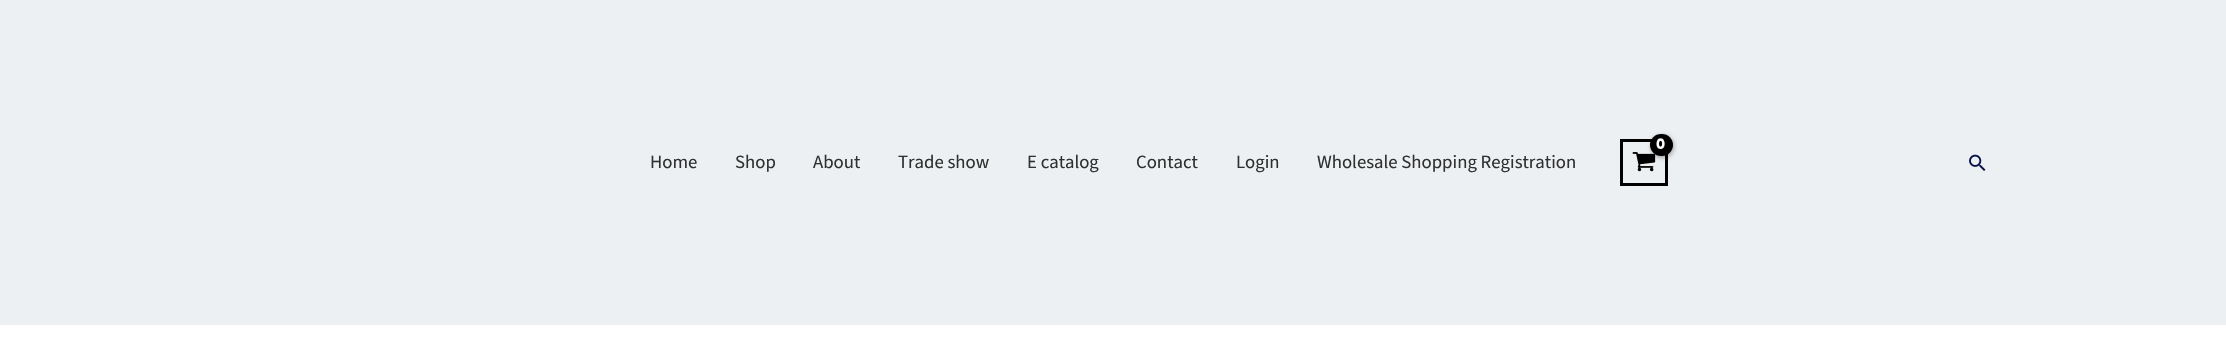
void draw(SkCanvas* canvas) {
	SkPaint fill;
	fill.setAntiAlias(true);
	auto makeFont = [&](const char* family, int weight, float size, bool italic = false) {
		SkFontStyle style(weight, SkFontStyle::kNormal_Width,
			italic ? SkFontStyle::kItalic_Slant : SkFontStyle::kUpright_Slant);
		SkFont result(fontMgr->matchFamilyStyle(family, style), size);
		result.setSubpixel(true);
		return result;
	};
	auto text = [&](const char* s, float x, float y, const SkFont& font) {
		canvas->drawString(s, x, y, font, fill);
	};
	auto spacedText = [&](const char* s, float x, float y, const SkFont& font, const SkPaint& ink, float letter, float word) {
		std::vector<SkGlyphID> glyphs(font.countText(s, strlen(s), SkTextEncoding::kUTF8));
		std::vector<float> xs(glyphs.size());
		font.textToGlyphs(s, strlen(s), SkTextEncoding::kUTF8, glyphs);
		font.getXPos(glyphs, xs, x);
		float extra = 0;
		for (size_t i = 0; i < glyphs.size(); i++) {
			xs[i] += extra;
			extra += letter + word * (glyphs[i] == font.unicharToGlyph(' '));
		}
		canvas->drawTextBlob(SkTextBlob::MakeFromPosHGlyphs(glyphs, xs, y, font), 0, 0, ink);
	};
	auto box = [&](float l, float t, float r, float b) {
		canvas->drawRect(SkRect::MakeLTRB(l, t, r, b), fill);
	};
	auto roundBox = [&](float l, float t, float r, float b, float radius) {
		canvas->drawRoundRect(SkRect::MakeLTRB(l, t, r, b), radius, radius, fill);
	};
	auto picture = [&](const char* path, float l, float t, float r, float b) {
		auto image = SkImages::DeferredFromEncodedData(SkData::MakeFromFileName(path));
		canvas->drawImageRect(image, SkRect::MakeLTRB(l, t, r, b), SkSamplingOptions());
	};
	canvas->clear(0xFFFFFFFF);
	fill.setColor(0xFFECF0F2);
	box(0, 0, 2226, 325);
	fill.setStyle(SkPaint::kStroke_Style);
	fill.setStrokeWidth(3);
	fill.setColor(0xFF000000);
	canvas->drawRect(SkRect::MakeLTRB(1621.5f, 140.5f, 1666.5f, 184.5f), fill);
	picture("image0.png", 1632, 152, 1656, 172);
	fill.setStyle(SkPaint::kFill_Style);
	fill.setColor(0x4D000000);
	fill.setMaskFilter(SkMaskFilter::MakeBlur(kNormal_SkBlurStyle, 2));
	canvas->drawRoundRect(SkRect::MakeLTRB(1651, 135, 1674, 158), 11.5f, 11.5f, fill);
	fill.setMaskFilter(nullptr);
	fill.setColor(0xFF000000);
	roundBox(1650, 134, 1673, 156, 11);
	picture("image1.png", 1969, 154, 1986, 171);
	auto font1 = makeFont("Poppins", 700, 14);
	fill.setColor(0xFFFFFFFF);
	spacedText("0", 1656, 149, font1, fill, -1, 0);
	auto font2 = makeFont("Source Sans 3", 400, 18.75f);
	fill.setColor(0xFF303030);
	text("Home", 650, 168, font2);
	text("Shop", 735, 168, font2);
	text("About", 813, 168, font2);
	text("Trade show", 898, 168, font2);
	text("E catalog", 1027, 168, font2);
	text("Contact", 1136, 168, font2);
	text("Login", 1236, 168, font2);
	text("Wholesale Shopping Registration", 1317, 168, font2);
}
